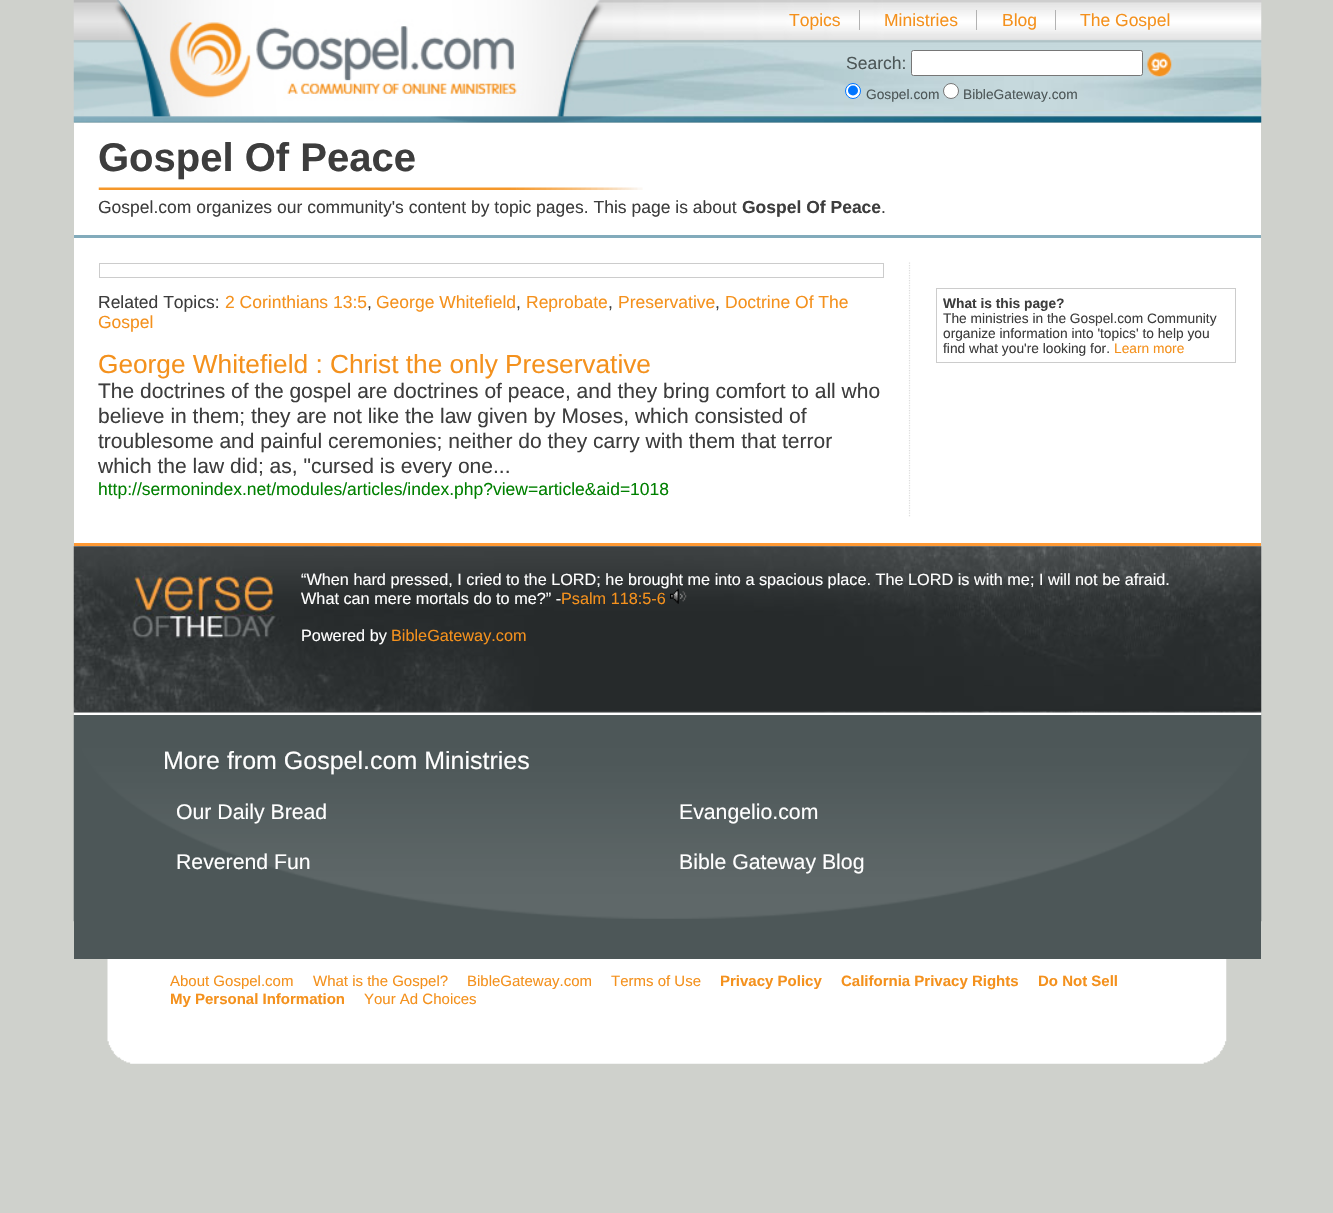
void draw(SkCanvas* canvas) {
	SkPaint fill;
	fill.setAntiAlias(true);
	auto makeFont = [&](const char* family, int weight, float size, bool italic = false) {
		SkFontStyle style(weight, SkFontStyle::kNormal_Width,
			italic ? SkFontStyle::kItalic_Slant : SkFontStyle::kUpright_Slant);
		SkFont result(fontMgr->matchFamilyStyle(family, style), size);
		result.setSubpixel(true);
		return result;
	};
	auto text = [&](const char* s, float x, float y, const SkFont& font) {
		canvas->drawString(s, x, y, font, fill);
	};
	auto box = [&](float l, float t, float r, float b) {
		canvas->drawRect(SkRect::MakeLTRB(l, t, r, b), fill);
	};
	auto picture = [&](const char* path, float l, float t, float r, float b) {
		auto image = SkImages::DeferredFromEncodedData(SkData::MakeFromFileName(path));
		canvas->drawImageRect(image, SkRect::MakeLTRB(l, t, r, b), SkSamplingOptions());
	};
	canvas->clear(0xFFCFD1CC);
	picture("image0.png", 73, 0, 1262, 123);
	fill.setColor(0xFFB2B2B2);
	box(859, 10, 860, 30);
	box(976, 10, 977, 30);
	box(1055, 10, 1056, 30);
	fill.setColor(0xFFFFFFFF);
	canvas->drawRoundRect(SkRect::MakeLTRB(911.5f, 50.5f, 1142.5f, 75.5f), 2, 2, fill);
	fill.setStyle(SkPaint::kStroke_Style);
	fill.setStrokeWidth(1);
	fill.setColor(0xFF767676);
	canvas->drawRoundRect(SkRect::MakeLTRB(911.5f, 50.5f, 1142.5f, 75.5f), 2, 2, fill);
	picture("image1.png", 1147, 52, 1172, 77);
	fill.setStyle(SkPaint::kFill_Style);
	fill.setColor(0xFFFFFFFF);
	canvas->drawCircle(853, 91, 7.5f, fill);
	fill.setStyle(SkPaint::kStroke_Style);
	fill.setColor(0xFF0075FF);
	canvas->drawCircle(853, 91, 7.5f, fill);
	fill.setStyle(SkPaint::kFill_Style);
	canvas->drawCircle(853, 90.5f, 5, fill);
	fill.setColor(0xFFFFFFFF);
	canvas->drawCircle(951, 91, 7.5f, fill);
	fill.setStyle(SkPaint::kStroke_Style);
	fill.setColor(0xFF767676);
	canvas->drawCircle(951, 91, 7.5f, fill);
	fill.setStyle(SkPaint::kFill_Style);
	fill.setColor(0xFFFFFFFF);
	box(74, 123, 1261, 235);
	picture("image2.png", 98, 187, 643, 190);
	fill.setColor(0xFF82ABBB);
	box(74, 235, 1261, 238);
	fill.setColor(0xFFFFFFFF);
	box(74, 238, 1261, 543);
	fill.setStyle(SkPaint::kStroke_Style);
	fill.setStrokeWidth(1.2f);
	fill.setColor(0xFFDDDDDD);
	fill.setPathEffect(SkDashPathEffect::Make({{1.25f, 1.25f}}, 0));
	canvas->drawPath(SkPathBuilder().moveTo(909.5f, 262.5f).lineTo(909.5f, 517.5f).detach(), fill);
	fill.setPathEffect(nullptr);
	fill.setStrokeWidth(1);
	fill.setColor(0xFFCCCCCC);
	canvas->drawRect(SkRect::MakeLTRB(99.5f, 263.5f, 883.5f, 277.5f), fill);
	canvas->drawRect(SkRect::MakeLTRB(936.5f, 288.5f, 1235.5f, 362.5f), fill);
	fill.setStyle(SkPaint::kFill_Style);
	fill.setColor(0xFFFF9933);
	box(74, 543, 1261, 546);
	fill.setColor(0xFFEEEEEE);
	box(74, 546, 1261, 713);
	picture("image3.png", 73, 546, 1262, 713);
	fill.setColor(0xFFFFFFFF);
	box(74, 713, 1261, 715);
	fill.setColor(0xFF4D5758);
	box(74, 921, 1261, 959);
	picture("image5.png", 73, 715, 1262, 922);
	picture("image6.png", 107, 959, 1227, 1064);
	auto font1 = makeFont("Liberation Sans", 400, 17.5f);
	fill.setColor(0xFFF4911D);
	text("Topics", 789, 26, font1);
	text("Ministries", 884, 26, font1);
	text("Blog", 1002, 26, font1);
	text("The Gospel", 1080, 26, font1);
	fill.setColor(0xFF4D5758);
	text("Search:", 846, 69, font1);
	auto font2 = makeFont("Liberation Sans", 400, 13.75f);
	text("Gospel.com", 866, 99, font2);
	text("BibleGateway.com", 963, 99, font2);
	auto font3 = makeFont("Liberation Sans", 700, 40);
	fill.setColor(0xFF3D3D3D);
	text("Gospel Of Peace", 98, 171, font3);
	text("Gospel.com organizes our community's content by topic pages. This page is about", 98, 213, font1);
	auto font4 = makeFont("Liberation Sans", 700, 17.5f);
	text("Gospel Of Peace", 742, 213, font4);
	text(".", 881, 213, font1);
	text("Related Topics:", 98, 308, font1);
	fill.setColor(0xFFF4911D);
	text("2 Corinthians 13:5", 225, 308, font1);
	fill.setColor(0xFF3D3D3D);
	text(",", 367, 308, font1);
	fill.setColor(0xFFF4911D);
	text("George Whitefield", 376, 308, font1);
	fill.setColor(0xFF3D3D3D);
	text(",", 516, 308, font1);
	fill.setColor(0xFFF4911D);
	text("Reprobate", 526, 308, font1);
	fill.setColor(0xFF3D3D3D);
	text(",", 608, 308, font1);
	fill.setColor(0xFFF4911D);
	text("Preservative", 618, 308, font1);
	fill.setColor(0xFF3D3D3D);
	text(",", 715, 308, font1);
	fill.setColor(0xFFF4911D);
	text("Doctrine Of The", 725, 308, font1);
	text("Gospel", 98, 328, font1);
	auto font5 = makeFont("Liberation Sans", 400, 26.25f);
	text("George Whitefield : Christ the only Preservative", 98, 373, font5);
	auto font6 = makeFont("Liberation Sans", 400, 21);
	fill.setColor(0xFF3D3D3D);
	text("The doctrines of the gospel are doctrines of peace, and they bring comfort to all who", 98, 398, font6);
	text("believe in them; they are not like the law given by Moses, which consisted of", 98, 423, font6);
	text("troublesome and painful ceremonies; neither do they carry with them that terror", 98, 448, font6);
	text("which the law did; as, \"cursed is every one...", 98, 473, font6);
	fill.setColor(0xFF008000);
	text("http://sermonindex.net/modules/articles/index.php?view=article&aid=1018", 98, 495, font1);
	auto font7 = makeFont("Liberation Sans", 700, 13.75f);
	fill.setColor(0xFF3D3D3D);
	text("What is this page?", 943, 308, font7);
	text("The ministries in the Gospel.com Community", 943, 323, font2);
	text("organize information into 'topics' to help you", 943, 338, font2);
	text("find what you're looking for.", 943, 353, font2);
	fill.setColor(0xFFF4911D);
	text("Learn more", 1114, 353, font2);
	auto font8 = makeFont("Liberation Sans", 400, 16.25f);
	fill.setColor(0xFFFFFFFF);
	text("“When hard pressed, I cried to the LORD; he brought me into a spacious place. The LORD is with me; I will not be afraid.", 301, 585, font8);
	text("What can mere mortals do to me?” -", 301, 604, font8);
	fill.setColor(0xFFF4911D);
	text("Psalm 118:5-6", 561, 604, font8);
	picture("image4.png", 670, 588, 687, 604);
	fill.setColor(0xFFFFFFFF);
	text("Powered by", 301, 641, font8);
	fill.setColor(0xFFF4911D);
	text("BibleGateway.com", 391, 641, font8);
	auto font9 = makeFont("Liberation Sans", 400, 25);
	fill.setColor(0xFFFFFFFF);
	text("More from Gospel.com Ministries", 163, 769, font9);
	auto font10 = makeFont("Liberation Sans", 400, 21.25f);
	text("Our Daily Bread", 176, 819, font10);
	text("Evangelio.com", 679, 819, font10);
	text("Reverend Fun", 176, 869, font10);
	text("Bible Gateway Blog", 679, 869, font10);
	auto font11 = makeFont("Liberation Sans", 400, 15);
	fill.setColor(0xFFF4911D);
	text("About Gospel.com", 170, 986, font11);
	text("What is the Gospel?", 313, 986, font11);
	text("BibleGateway.com", 467, 986, font11);
	text("Terms of Use", 611, 986, font11);
	auto font12 = makeFont("Liberation Sans", 700, 15);
	text("Privacy Policy", 720, 986, font12);
	text("California Privacy Rights", 841, 986, font12);
	text("Do Not Sell", 1038, 986, font12);
	text("My Personal Information", 170, 1004, font12);
	text("Your Ad Choices", 364, 1004, font11);
}
